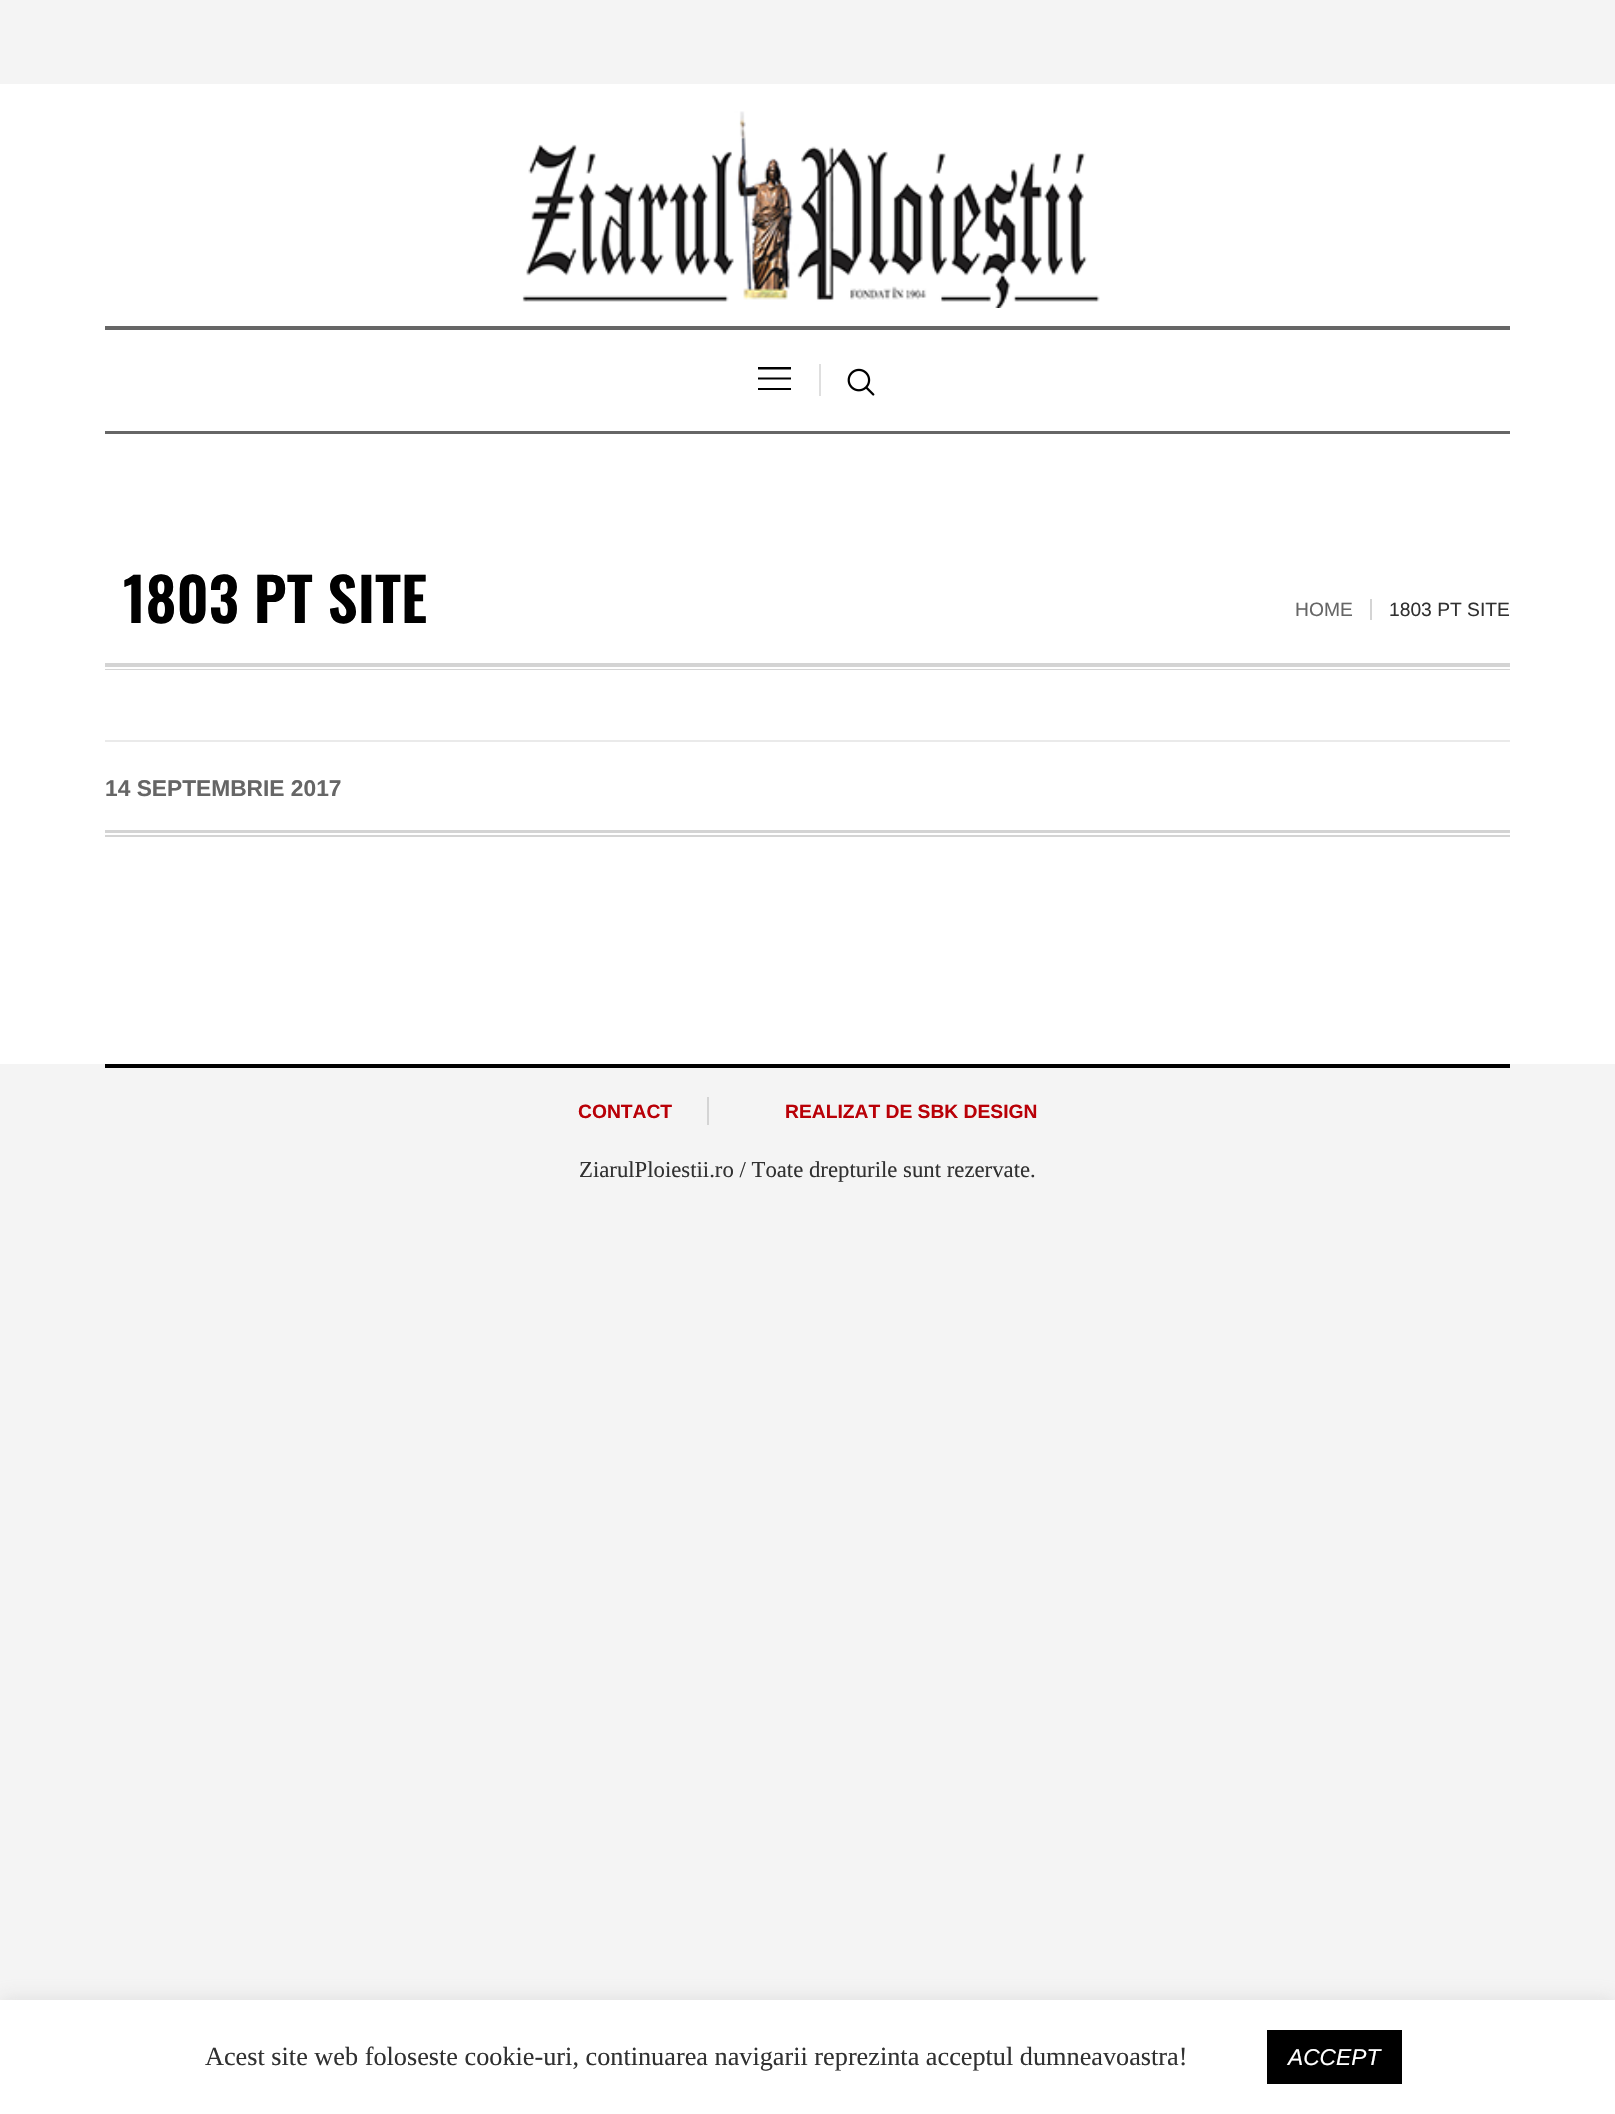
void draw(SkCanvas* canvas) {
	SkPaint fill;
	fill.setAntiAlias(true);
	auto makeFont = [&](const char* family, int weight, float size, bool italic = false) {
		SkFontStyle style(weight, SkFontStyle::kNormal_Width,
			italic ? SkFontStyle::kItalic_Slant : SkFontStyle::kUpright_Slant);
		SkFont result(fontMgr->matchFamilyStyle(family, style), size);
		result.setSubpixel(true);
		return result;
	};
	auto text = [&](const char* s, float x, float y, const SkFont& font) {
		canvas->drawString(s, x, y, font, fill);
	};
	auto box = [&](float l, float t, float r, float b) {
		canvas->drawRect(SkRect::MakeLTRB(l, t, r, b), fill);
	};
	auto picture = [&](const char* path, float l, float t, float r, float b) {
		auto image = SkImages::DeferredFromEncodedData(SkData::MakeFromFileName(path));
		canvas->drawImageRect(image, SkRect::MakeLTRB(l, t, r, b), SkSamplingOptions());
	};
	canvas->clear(0xFFF4F4F4);
	fill.setColor(0xFFFFFFFF);
	box(0, 84, 1615, 434);
	picture("image0.png", 522, 111, 1100, 308);
	fill.setColor(0xFF666666);
	box(105, 326, 1510, 330);
	box(105, 431, 1510, 434);
	fill.setColor(0xFF000000);
	canvas->drawPath(SkPathBuilder().moveTo(758, 367).lineTo(758, 369.5f).lineTo(791, 369.5f).lineTo(791, 367).close().moveTo(758, 379.5f).lineTo(791, 379.5f).lineTo(791, 377.5f).lineTo(758, 377.5f).close().moveTo(758, 390).lineTo(791, 390).lineTo(791, 388).lineTo(758, 388).close().detach(), fill);
	fill.setColor(0xFFDFDFDF);
	box(819, 364, 821, 396);
	picture("image1.png", 847, 368, 875, 396);
	fill.setColor(0xFFFFFFFF);
	box(0, 434, 1615, 1064);
	fill.setColor(0xFFD4D4D4);
	box(105, 663, 1510, 667);
	box(105, 669, 1510, 670);
	box(1370, 599, 1372, 620);
	box(105, 830, 1510, 833);
	box(105, 835, 1510, 837);
	fill.setColor(0xFFEAEAEA);
	box(105, 740, 1510, 742);
	fill.setColor(0xFF000000);
	box(105, 1064, 1510, 1068);
	fill.setColor(0xFFD4D4D4);
	box(707, 1097, 709, 1125);
	fill.setColor(0x4DACABAB);
	fill.setMaskFilter(SkMaskFilter::MakeBlur(kNormal_SkBlurStyle, 9));
	canvas->drawRect(SkRect::MakeLTRB(0, 1999, 1615, 2112), fill);
	fill.setMaskFilter(nullptr);
	fill.setColor(0xFFFFFFFF);
	box(0, 2000, 1615, 2114);
	fill.setColor(0xFF000000);
	box(1267, 2030, 1402, 2084);
	auto font1 = makeFont("Oswald", 600, 59.5f);
	text("1803 PT SITE", 123, 623, font1);
	auto font2 = makeFont("Liberation Sans", 400, 19.25f);
	fill.setColor(0xFF666666);
	text("HOME", 1295, 616, font2);
	fill.setColor(0xFF313131);
	text("1803 PT SITE", 1389, 616, font2);
	auto font3 = makeFont("Liberation Sans", 700, 22.75f);
	fill.setColor(0xFF666666);
	text("14 SEPTEMBRIE 2017", 105, 796, font3);
	auto font4 = makeFont("Liberation Sans", 700, 19.25f);
	fill.setColor(0xFFB90007);
	text("CONTACT", 578, 1118, font4);
	text("REALIZAT DE SBK DESIGN", 785, 1118, font4);
	auto font5 = makeFont("Liberation Serif", 400, 22.75f);
	fill.setColor(0xFF313131);
	text("ZiarulPloiestii.ro / Toate drepturile sunt rezervate.", 579, 1177, font5);
	auto font6 = makeFont("Liberation Serif", 400, 26.25f);
	text("Acest site web foloseste cookie-uri, continuarea navigarii reprezinta acceptul dumneavoastra!", 205, 2065, font6);
	auto font7 = makeFont("Liberation Sans", 400, 22.75f, true);
	fill.setColor(0xFFFFFFFF);
	text("ACCEPT", 1288, 2065, font7);
}
